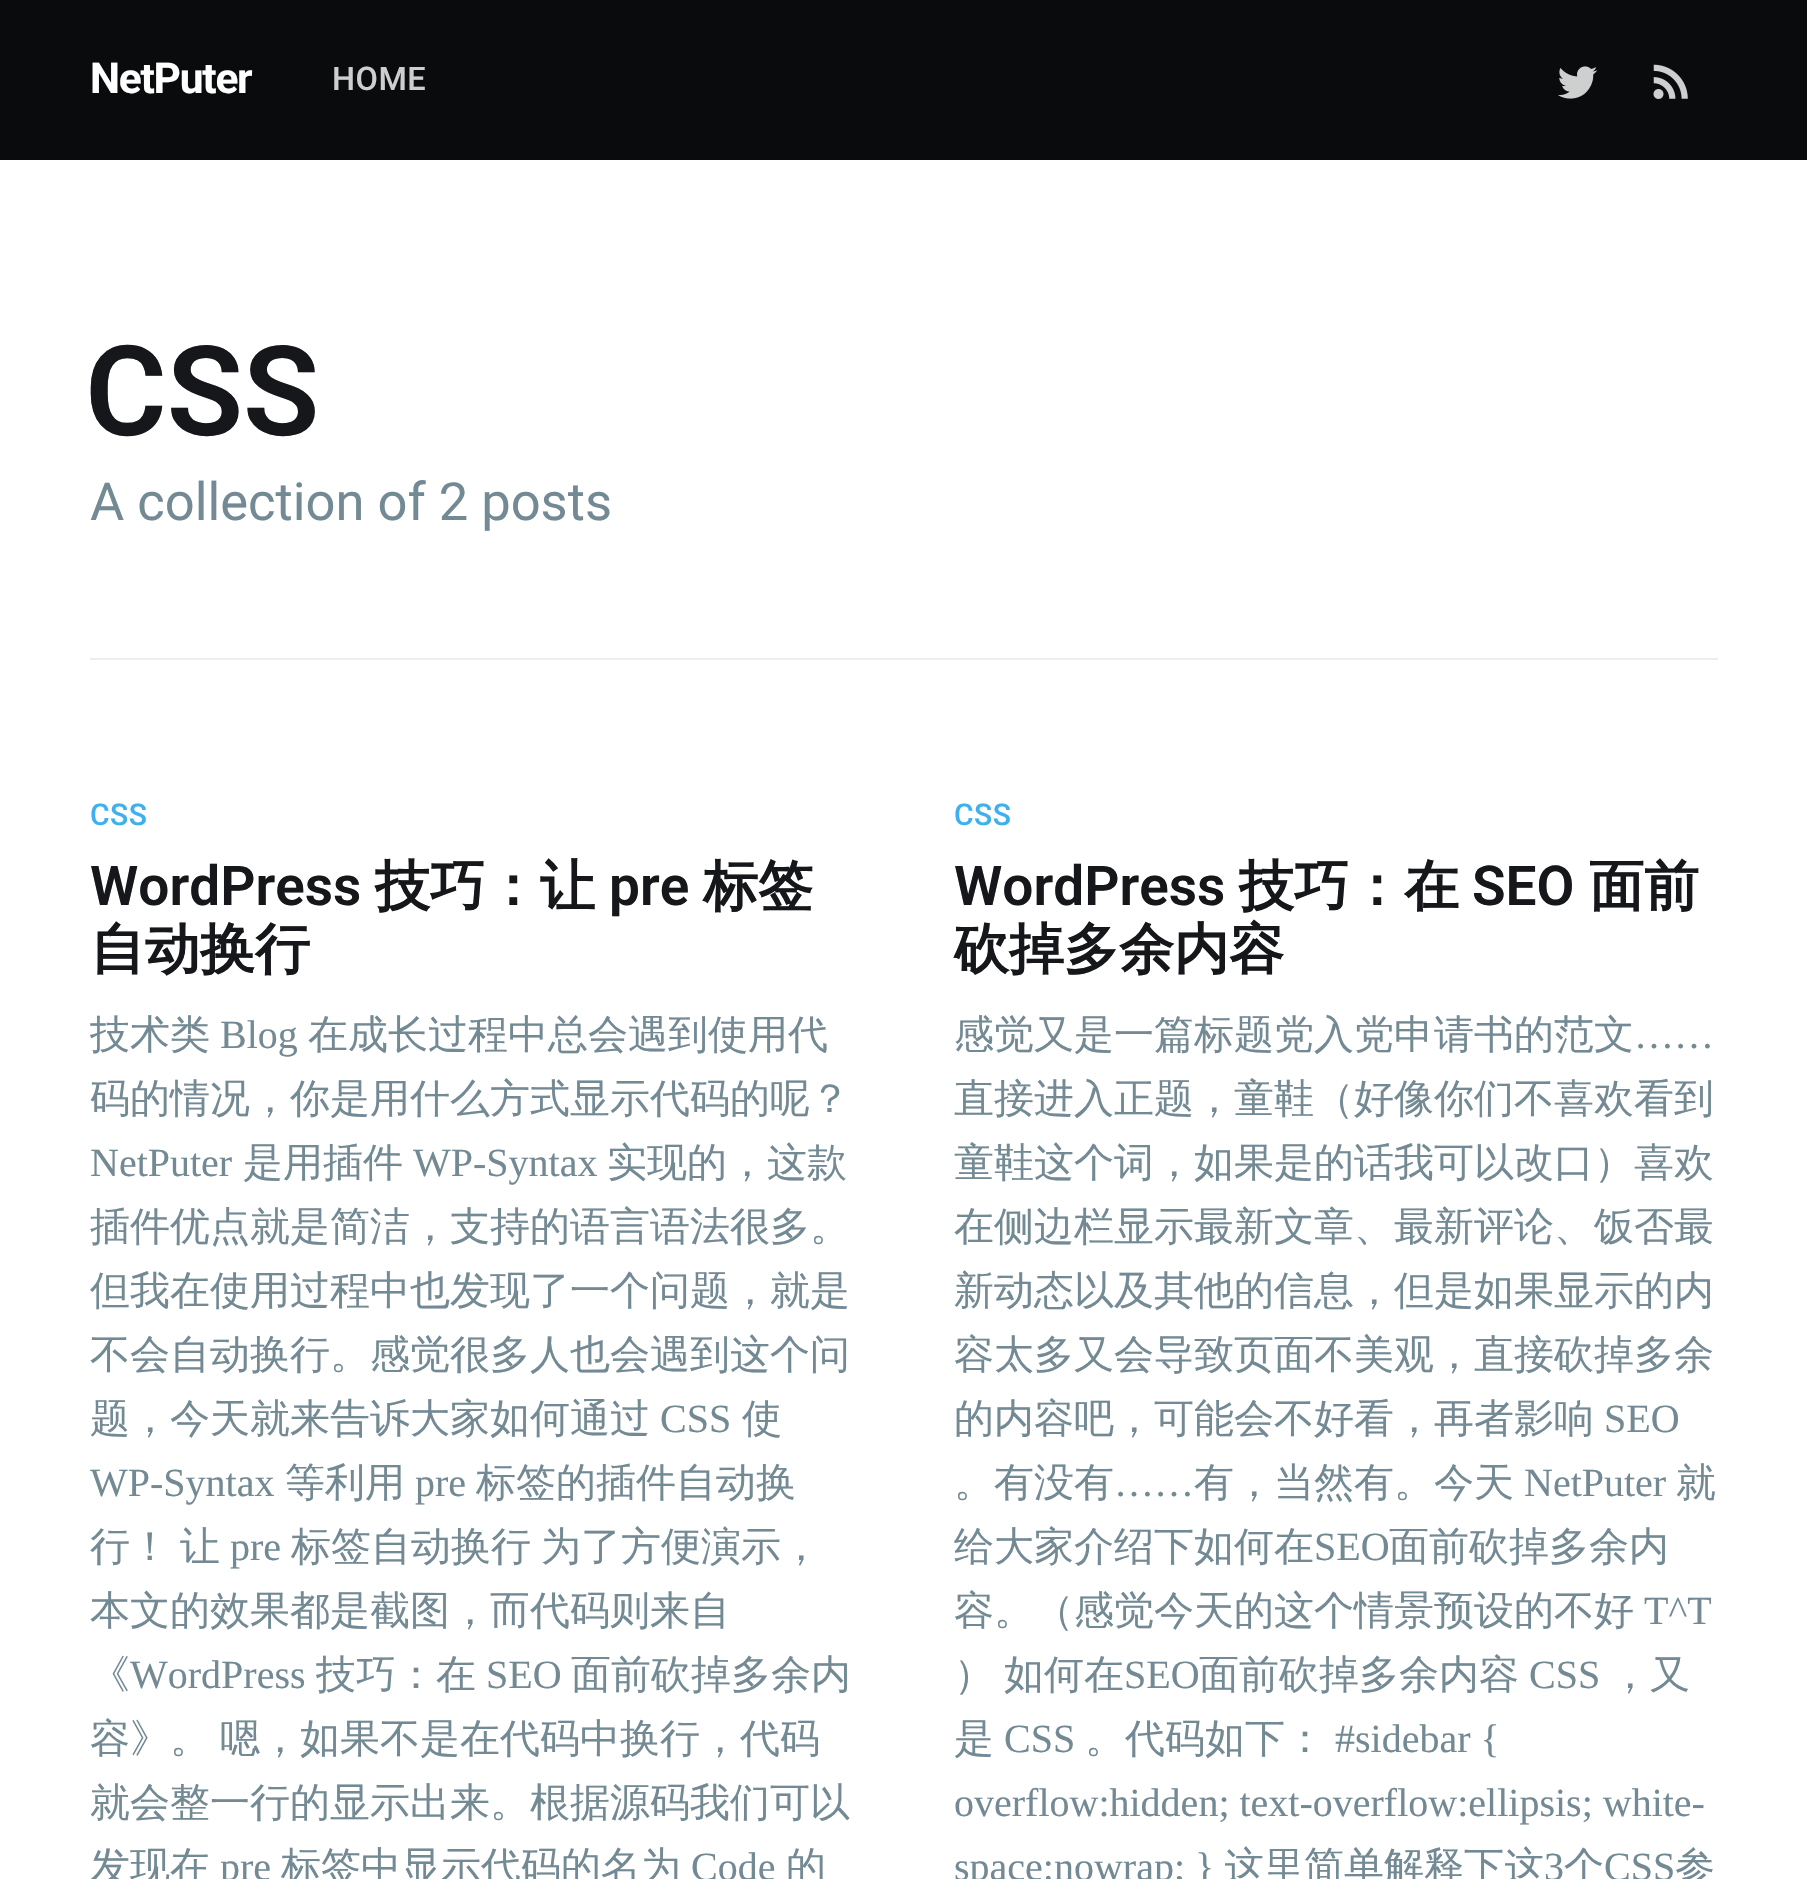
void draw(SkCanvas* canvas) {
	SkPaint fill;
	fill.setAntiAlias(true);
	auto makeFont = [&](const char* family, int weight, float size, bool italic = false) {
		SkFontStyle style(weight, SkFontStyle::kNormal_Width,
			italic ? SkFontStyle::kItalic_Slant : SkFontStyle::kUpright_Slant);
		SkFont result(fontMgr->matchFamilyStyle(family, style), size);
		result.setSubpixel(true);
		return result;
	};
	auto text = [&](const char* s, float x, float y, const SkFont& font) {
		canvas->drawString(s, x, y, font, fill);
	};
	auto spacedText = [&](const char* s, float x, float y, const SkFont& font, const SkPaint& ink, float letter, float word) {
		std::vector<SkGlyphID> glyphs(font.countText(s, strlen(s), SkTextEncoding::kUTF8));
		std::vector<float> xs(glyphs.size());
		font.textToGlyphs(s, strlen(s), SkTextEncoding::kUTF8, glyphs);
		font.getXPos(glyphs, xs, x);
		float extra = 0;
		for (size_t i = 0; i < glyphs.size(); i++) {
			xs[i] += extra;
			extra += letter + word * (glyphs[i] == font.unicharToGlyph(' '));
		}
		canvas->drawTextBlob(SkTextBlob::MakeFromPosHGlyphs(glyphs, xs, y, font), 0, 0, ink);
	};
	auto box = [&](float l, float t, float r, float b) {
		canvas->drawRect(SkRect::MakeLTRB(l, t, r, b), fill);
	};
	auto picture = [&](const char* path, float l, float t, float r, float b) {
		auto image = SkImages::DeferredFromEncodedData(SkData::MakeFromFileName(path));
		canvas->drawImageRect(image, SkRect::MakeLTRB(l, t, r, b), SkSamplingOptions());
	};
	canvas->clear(0xFFFFFFFF);
	fill.setColor(0xFF0A0B0C);
	box(0, 0, 1807, 160);
	picture("image0.png", 1558, 66, 1598, 99);
	picture("image1.png", 1653, 64, 1688, 99);
	fill.setColor(0xFFEAEFF1);
	box(90, 658, 1718, 660);
	auto font1 = makeFont("Roboto", 700, 42.5f);
	fill.setColor(0xFFFFFFFF);
	spacedText("NetPuter", 90, 93, font1, fill, -1.25f, 0);
	auto font2 = makeFont("Roboto", 500, 32.5f);
	fill.setColor(0xFFCECECE);
	spacedText("HOME", 332, 90, font2, fill, 0.5f, 0);
	auto font3 = makeFont("Roboto", 600, 125);
	fill.setColor(0xFF15171A);
	text("CSS", 85, 435, font3);
	auto font4 = makeFont("Roboto", 400, 52.5f);
	fill.setColor(0xFF738A94);
	text("A collection of 2 posts", 90, 520, font4);
	auto font5 = makeFont("Roboto", 500, 30);
	fill.setColor(0xFF3EB0EF);
	spacedText("CSS", 90, 825, font5, fill, 0.5f, 0);
	auto font6 = makeFont("Roboto", 600, 55);
	fill.setColor(0xFF15171A);
	text("WordPress", 90, 905, font6);
	auto font7 = makeFont("WenQuanYi Zen Hei", 700, 55);
	text("技巧：让", 375, 905, font7);
	text("pre", 609, 905, font6);
	text("标签", 703, 905, font7);
	text("自动换行", 90, 968, font7);
	auto font8 = makeFont("WenQuanYi Zen Hei", 500, 40);
	fill.setColor(0xFF738A94);
	text("技术类", 90, 1048, font8);
	auto font9 = makeFont("Liberation Serif", 400, 40);
	text("Blog", 220, 1048, font9);
	text("在成长过程中总会遇到使用代", 308, 1048, font8);
	text("码的情况，你是用什么方式显示代码的呢？", 90, 1112, font8);
	text("NetPuter", 90, 1176, font9);
	text("是用插件", 243, 1176, font8);
	text("WP-Syntax", 413, 1176, font9);
	text("实现的，这款", 607, 1176, font8);
	text("插件优点就是简洁，支持的语言语法很多。", 90, 1240, font8);
	text("但我在使用过程中也发现了一个问题，就是", 90, 1304, font8);
	text("不会自动换行。感觉很多人也会遇到这个问", 90, 1368, font8);
	text("题，今天就来告诉大家如何通过", 90, 1432, font8);
	text("CSS", 660, 1432, font9);
	text("使", 742, 1432, font8);
	text("WP-Syntax", 90, 1496, font9);
	text("等利用", 285, 1496, font8);
	text("pre", 415, 1496, font9);
	text("标签的插件自动换", 476, 1496, font8);
	text("行！", 90, 1560, font8);
	text("让", 180, 1560, font8);
	text("pre", 230, 1560, font9);
	text("标签自动换行", 291, 1560, font8);
	text("为了方便演示，", 541, 1560, font8);
	text("本文的效果都是截图，而代码则来自", 90, 1624, font8);
	text("《", 90, 1688, font8);
	text("WordPress", 130, 1688, font9);
	text("技巧：在", 316, 1688, font8);
	text("SEO", 486, 1688, font9);
	text("面前砍掉多余内", 571, 1688, font8);
	spacedText("容》。 嗯，如果不是在代码中换行，代码", 90, 1752, font8, fill, 0, -2);
	text("就会整一行的显示出来。根据源码我们可以", 90, 1816, font8);
	text("发现在", 90, 1880, font8);
	text("pre", 220, 1880, font9);
	text("标签中显示代码的名为", 281, 1880, font8);
	text("Code", 691, 1880, font9);
	text("的", 786, 1880, font8);
	fill.setColor(0xFF3EB0EF);
	spacedText("CSS", 954, 825, font5, fill, 0.5f, 0);
	fill.setColor(0xFF15171A);
	text("WordPress", 954, 905, font6);
	text("技巧：在", 1239, 905, font7);
	text("SEO", 1472, 905, font6);
	text("面前", 1589, 905, font7);
	text("砍掉多余内容", 954, 968, font7);
	fill.setColor(0xFF738A94);
	text("感觉又是一篇标题党入党申请书的范文", 954, 1048, font8);
	text("……", 1634, 1048, font9);
	text("直接进入正题，童鞋（好像你们不喜欢看到", 954, 1112, font8);
	text("童鞋这个词，如果是的话我可以改口）喜欢", 954, 1176, font8);
	text("在侧边栏显示最新文章、最新评论、饭否最", 954, 1240, font8);
	text("新动态以及其他的信息，但是如果显示的内", 954, 1304, font8);
	text("容太多又会导致页面不美观，直接砍掉多余", 954, 1368, font8);
	text("的内容吧，可能会不好看，再者影响", 954, 1432, font8);
	text("SEO", 1604, 1432, font9);
	text("。有没有", 954, 1496, font8);
	text("……", 1114, 1496, font9);
	text("有，当然有。今天", 1194, 1496, font8);
	text("NetPuter", 1524, 1496, font9);
	text("就", 1676, 1496, font8);
	text("给大家介绍下如何在", 954, 1560, font8);
	text("SEO", 1314, 1560, font9);
	text("面前砍掉多余内", 1389, 1560, font8);
	text("容。（感觉今天的这个情景预设的不好", 954, 1624, font8);
	text("T^T", 1644, 1624, font9);
	text("）", 954, 1688, font8);
	text("如何在", 1004, 1688, font8);
	text("SEO", 1124, 1688, font9);
	text("面前砍掉多余内容", 1199, 1688, font8);
	text("CSS", 1529, 1688, font9);
	text("，又", 1610, 1688, font8);
	text("是", 954, 1752, font8);
	text("CSS", 1004, 1752, font9);
	text("。代码如下：", 1085, 1752, font8);
	text("#sidebar {", 1335, 1752, font9);
	text("overflow:hidden; text-overflow:ellipsis; white-", 954, 1816, font9);
	text("space:nowrap; }", 954, 1880, font9);
	text("这里简单解释下这", 1224, 1880, font8);
	text("3", 1544, 1880, font9);
	text("个", 1564, 1880, font8);
	text("CSS", 1604, 1880, font9);
	text("参", 1675, 1880, font8);
}
